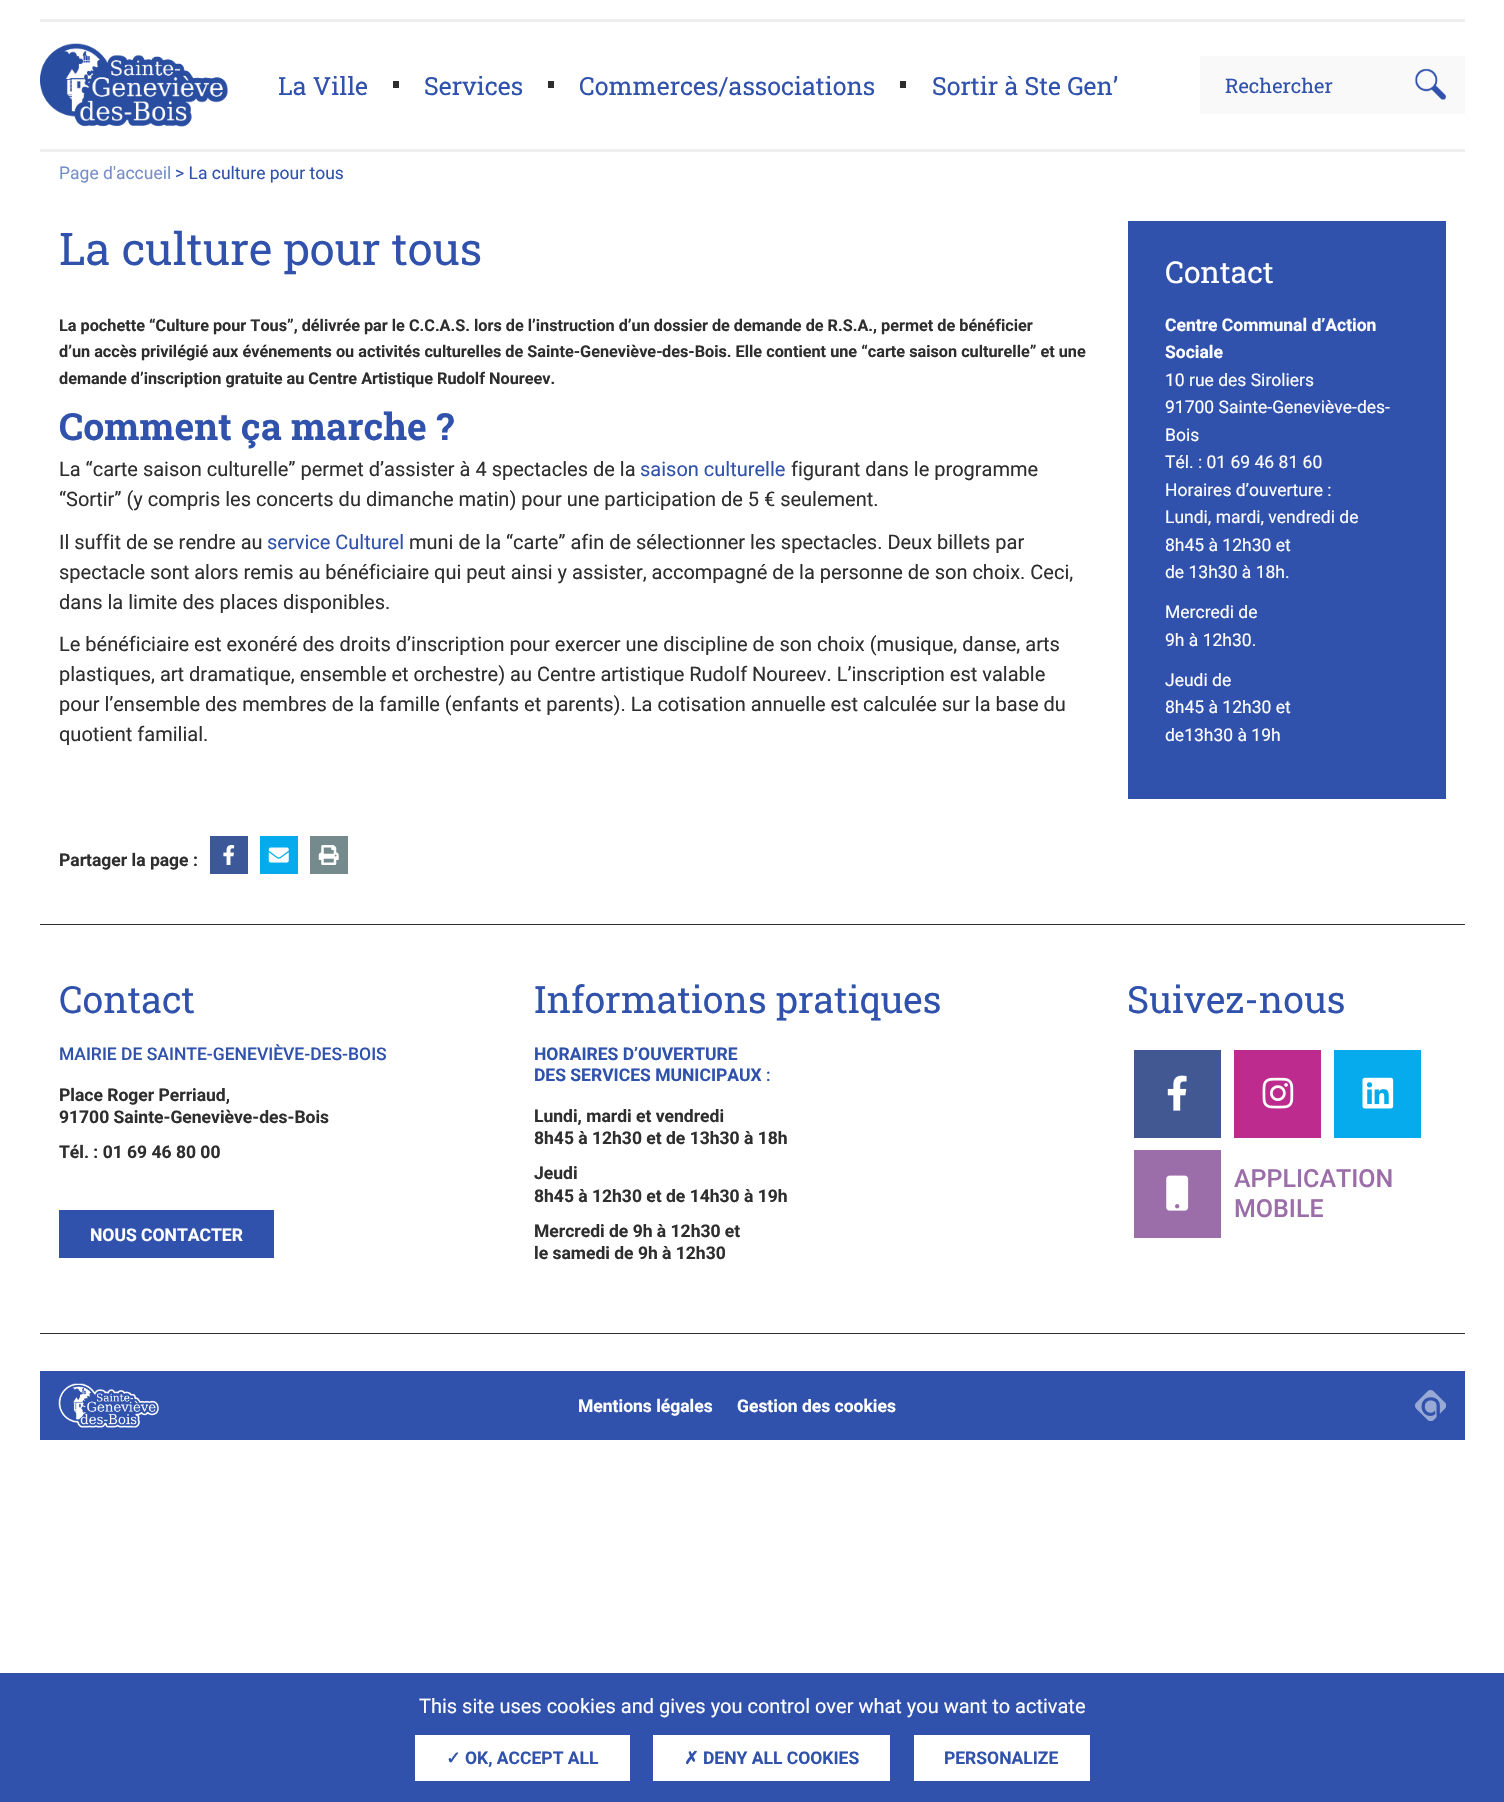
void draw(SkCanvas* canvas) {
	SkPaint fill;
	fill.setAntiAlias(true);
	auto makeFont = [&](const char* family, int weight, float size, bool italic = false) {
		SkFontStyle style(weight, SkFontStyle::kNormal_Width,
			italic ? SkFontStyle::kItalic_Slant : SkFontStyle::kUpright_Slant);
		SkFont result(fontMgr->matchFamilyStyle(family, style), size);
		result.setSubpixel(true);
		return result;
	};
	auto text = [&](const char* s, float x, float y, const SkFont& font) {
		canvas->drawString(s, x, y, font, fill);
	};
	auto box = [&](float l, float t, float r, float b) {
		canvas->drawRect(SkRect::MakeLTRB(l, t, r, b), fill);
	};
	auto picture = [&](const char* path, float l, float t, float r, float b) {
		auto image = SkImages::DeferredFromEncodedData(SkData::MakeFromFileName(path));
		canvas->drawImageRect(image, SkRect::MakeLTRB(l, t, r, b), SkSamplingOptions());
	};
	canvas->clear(0xFFFFFFFF);
	fill.setColor(0xFFEEEEEE);
	box(40, 19, 1465, 22);
	box(40, 149, 1465, 152);
	picture("image0.png", 40, 43, 228, 127);
	fill.setColor(0xFF2E2E2E);
	box(393, 81, 399, 88);
	box(548, 81, 554, 88);
	box(900, 81, 906, 88);
	fill.setColor(0xFFF9F9F9);
	box(1200, 56, 1465, 114);
	picture("image1.png", 1415, 68, 1447, 100);
	fill.setColor(0xFF3052AC);
	box(1128, 221, 1446, 799);
	fill.setColor(0xFF3C5898);
	box(210, 836, 248, 874);
	picture("image2.png", 223, 845, 235, 865);
	fill.setColor(0xFF06ABED);
	box(260, 836, 298, 874);
	picture("image3.png", 268, 847, 289, 863);
	fill.setColor(0xFF748A8D);
	box(310, 836, 348, 874);
	picture("image4.png", 318, 845, 339, 865);
	fill.setColor(0xFF2E2E2E);
	box(40, 924, 1465, 925);
	box(40, 1333, 1465, 1334);
	fill.setColor(0xFF3052AC);
	box(59, 1210, 274, 1258);
	fill.setColor(0xFF425893);
	box(1134, 1050, 1221, 1138);
	picture("image5.png", 1167, 1075, 1187, 1111);
	fill.setColor(0xFFBC2B8D);
	box(1234, 1050, 1321, 1138);
	picture("image6.png", 1262, 1077, 1294, 1109);
	fill.setColor(0xFF06ABED);
	box(1334, 1050, 1421, 1138);
	picture("image7.png", 1362, 1077, 1394, 1109);
	fill.setColor(0xFF9B6DA9);
	box(1134, 1150, 1221, 1238);
	picture("image8.png", 1166, 1175, 1189, 1211);
	fill.setColor(0xFF3052AC);
	box(40, 1371, 1465, 1440);
	picture("image9.png", 58, 1383, 159, 1428);
	picture("image10.png", 1415, 1390, 1446, 1421);
	box(0, 1673, 1504, 1802);
	fill.setColor(0xFFFFFFFF);
	box(415, 1735, 630, 1781);
	box(653, 1735, 890, 1781);
	box(914, 1735, 1090, 1781);
	auto font1 = makeFont("Roboto Slab", 400, 25);
	fill.setColor(0xFF3052AC);
	text("La Ville", 278, 95, font1);
	text("Services", 424, 95, font1);
	text("Commerces/associations", 579, 95, font1);
	text("Sortir à Ste Gen’", 932, 95, font1);
	auto font2 = makeFont("Roboto Slab", 400, 20);
	text("Rechercher", 1225, 93, font2);
	auto font3 = makeFont("Roboto", 400, 17.5f);
	fill.setColor(0xFF788FC9);
	text("Page d'accueil", 59, 179, font3);
	fill.setColor(0xFF3052AC);
	text("> La culture pour tous", 175, 179, font3);
	auto font4 = makeFont("Roboto Slab", 400, 45);
	text("La culture pour tous", 59, 265, font4);
	auto font5 = makeFont("Roboto", 700, 16.25f);
	fill.setColor(0xFF2E2E2E);
	text("La pochette “Culture pour Tous”, délivrée par le C.C.A.S. lors de l’instruction d’un dossier de demande de R.S.A., permet de bénéficier", 59, 331, font5);
	text("d’un accès privilégié aux événements ou activités culturelles de Sainte-Geneviève-", 59, 357, font5);
	text("des-Bois. Elle contient une “carte saison culturelle” et une", 662, 357, font5);
	text("demande d’inscription gratuite au Centre Artistique Rudolf Noureev.", 59, 384, font5);
	auto font6 = makeFont("Roboto Slab", 700, 37.5f);
	fill.setColor(0xFF3052AC);
	text("Comment ça marche ?", 59, 440, font6);
	auto font7 = makeFont("Roboto", 400, 20);
	fill.setColor(0xFF2E2E2E);
	text("La “carte saison culturelle” permet d’assister à 4 spectacles de la", 59, 476, font7);
	fill.setColor(0xFF3052AC);
	text("saison culturelle", 640, 476, font7);
	fill.setColor(0xFF2E2E2E);
	text("figurant dans le programme", 791, 476, font7);
	text("“Sortir” (y compris les concerts du dimanche matin) pour une participation de 5 € seulement.", 59, 506, font7);
	text("Il suffit de se rendre au", 59, 549, font7);
	fill.setColor(0xFF3052AC);
	text("service Culturel", 267, 549, font7);
	fill.setColor(0xFF2E2E2E);
	text("muni de la “carte” afin de sélectionner les spectacles. Deux billets par", 409, 549, font7);
	text("spectacle sont alors remis au bénéficiaire qui peut ainsi y assister, accompagné de la personne de son choix. Ceci,", 59, 579, font7);
	text("dans la limite des places disponibles.", 59, 609, font7);
	text("Le bénéficiaire est exonéré des droits d’inscription pour exercer une discipline de son choix (musique, danse, arts", 59, 651, font7);
	text("plastiques, art dramatique, ensemble et orchestre) au Centre artistique Rudolf Noureev. L’inscription est valable", 59, 681, font7);
	text("pour l’ensemble des membres de la famille (enfants et parents). La cotisation annuelle est calculée sur la base du", 59, 711, font7);
	text("quotient familial.", 59, 741, font7);
	auto font8 = makeFont("Roboto Slab", 400, 30);
	fill.setColor(0xFFFFFFFF);
	text("Contact", 1165, 283, font8);
	auto font9 = makeFont("Roboto", 700, 17.5f);
	text("Centre Communal d’Action", 1165, 331, font9);
	text("Sociale", 1165, 358, font9);
	text("10 rue des Siroliers", 1165, 386, font3);
	text("91700 Sainte-Geneviève-des-", 1165, 413, font3);
	text("Bois", 1165, 441, font3);
	text("Tél. : 01 69 46 81 60", 1165, 468, font3);
	text("Horaires d’ouverture :", 1165, 496, font3);
	text("Lundi, mardi, vendredi de", 1165, 523, font3);
	text("8h45 à 12h30 et", 1165, 551, font3);
	text("de 13h30 à 18h.", 1165, 578, font3);
	text("Mercredi de", 1165, 618, font3);
	text("9h à 12h30.", 1165, 646, font3);
	text("Jeudi de", 1165, 686, font3);
	text("8h45 à 12h30 et", 1165, 713, font3);
	text("de13h30 à 19h", 1165, 741, font3);
	fill.setColor(0xFF2E2E2E);
	text("Partager la page :", 59, 866, font9);
	auto font10 = makeFont("Roboto Slab", 400, 37.5f);
	fill.setColor(0xFF3052AC);
	text("Contact", 59, 1013, font10);
	auto font11 = makeFont("Roboto", 500, 17.5f);
	text("MAIRIE DE SAINTE-GENEVIÈVE-DES-BOIS", 59, 1060, font11);
	fill.setColor(0xFF2E2E2E);
	text("Place Roger Perriaud,", 59, 1101, font9);
	text("91700 Sainte-Geneviève-des-Bois", 59, 1123, font9);
	text("Tél. : 01 69 46 80 00", 59, 1158, font9);
	fill.setColor(0xFFFFFFFF);
	text("NOUS CONTACTER", 90, 1241, font9);
	fill.setColor(0xFF3052AC);
	text("Informations pratiques", 534, 1013, font10);
	text("HORAIRES D’OUVERTURE", 534, 1060, font9);
	text("DES SERVICES MUNICIPAUX", 534, 1081, font9);
	text(":", 766, 1081, font11);
	fill.setColor(0xFF2E2E2E);
	text("Lundi, mardi et vendredi", 534, 1122, font9);
	text("8h45 à 12h30 et de 13h30 à 18h", 534, 1144, font9);
	text("Jeudi", 534, 1179, font9);
	text("8h45 à 12h30 et de 14h30 à 19h", 534, 1202, font9);
	text("Mercredi de 9h à 12h30 et", 534, 1237, font9);
	text("le samedi de 9h à 12h30", 534, 1259, font9);
	fill.setColor(0xFF3052AC);
	text("Suivez-nous", 1127, 1013, font10);
	auto font12 = makeFont("Roboto", 500, 25);
	fill.setColor(0xFF9B6DA9);
	text("APPLICATION", 1234, 1187, font12);
	text("MOBILE", 1234, 1217, font12);
	fill.setColor(0xFFFFFFFF);
	text("Mentions légales", 578, 1412, font9);
	text("Gestion des cookies", 737, 1412, font9);
	text("This site uses cookies and gives you control over what you want to activate", 419, 1713, font7);
	auto font13 = makeFont("DejaVu Sans", 700, 17.5f);
	fill.setColor(0xFF3052AC);
	text("✓", 446, 1764, font13);
	text("OK, ACCEPT ALL", 465, 1764, font9);
	text("✗", 684, 1764, font13);
	text("DENY ALL COOKIES", 703, 1764, font9);
	text("PERSONALIZE", 944, 1764, font9);
}
